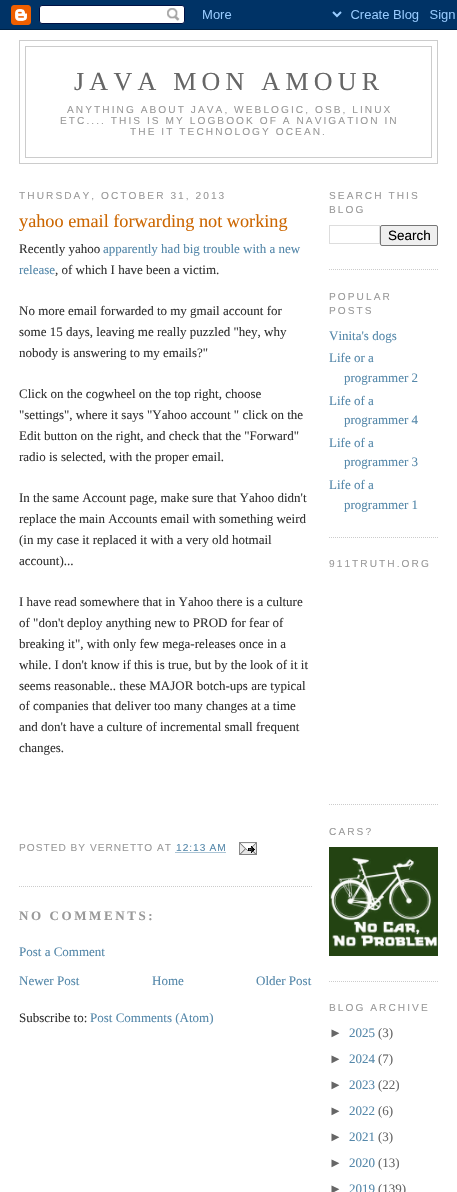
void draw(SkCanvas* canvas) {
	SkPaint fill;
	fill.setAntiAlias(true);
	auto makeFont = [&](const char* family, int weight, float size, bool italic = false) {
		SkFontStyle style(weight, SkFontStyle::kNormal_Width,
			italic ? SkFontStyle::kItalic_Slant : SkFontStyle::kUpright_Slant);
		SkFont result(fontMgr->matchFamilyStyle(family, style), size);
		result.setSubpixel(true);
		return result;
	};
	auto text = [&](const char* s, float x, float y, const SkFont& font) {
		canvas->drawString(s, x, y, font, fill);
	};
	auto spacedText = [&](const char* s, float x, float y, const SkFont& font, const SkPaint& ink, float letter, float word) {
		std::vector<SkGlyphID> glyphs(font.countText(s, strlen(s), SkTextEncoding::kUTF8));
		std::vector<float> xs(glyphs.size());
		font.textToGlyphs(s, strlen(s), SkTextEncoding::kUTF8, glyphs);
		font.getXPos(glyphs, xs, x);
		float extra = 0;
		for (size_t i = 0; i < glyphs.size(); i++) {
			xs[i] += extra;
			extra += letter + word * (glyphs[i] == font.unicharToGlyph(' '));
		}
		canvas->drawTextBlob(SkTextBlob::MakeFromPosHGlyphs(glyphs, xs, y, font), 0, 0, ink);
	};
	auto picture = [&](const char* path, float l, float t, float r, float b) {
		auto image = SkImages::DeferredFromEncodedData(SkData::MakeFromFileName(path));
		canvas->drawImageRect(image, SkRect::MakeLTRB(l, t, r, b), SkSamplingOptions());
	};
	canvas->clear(0xFFFFFFFF);
	picture("image0.png", 0, 0, 457, 30);
	fill.setStyle(SkPaint::kStroke_Style);
	fill.setStrokeWidth(1);
	fill.setColor(0xFFCCCCCC);
	canvas->drawRect(SkRect::MakeLTRB(19.5f, 40.5f, 437.5f, 163.5f), fill);
	canvas->drawRect(SkRect::MakeLTRB(25.5f, 46.5f, 431.5f, 157.5f), fill);
	fill.setPathEffect(SkDashPathEffect::Make({{1, 1}}, 0));
	canvas->drawPath(SkPathBuilder().moveTo(19, 886.5f).lineTo(312, 886.5f).detach(), fill);
	fill.setPathEffect(nullptr);
	fill.setColor(0xFF5588AA);
	fill.setPathEffect(SkDashPathEffect::Make({{1, 1}}, 0));
	canvas->drawPath(SkPathBuilder().moveTo(175.5f, 852.5f).lineTo(226, 852.5f).detach(), fill);
	fill.setPathEffect(nullptr);
	picture("image1.png", 239, 842, 257, 855);
	fill.setColor(0xFFCCCCCC);
	fill.setPathEffect(SkDashPathEffect::Make({{1, 1}}, 0));
	canvas->drawPath(SkPathBuilder().moveTo(329, 269.5f).lineTo(438, 269.5f).detach(), fill);
	fill.setPathEffect(nullptr);
	fill.setColor(0xFFDDDDDD);
	canvas->drawRect(SkRect::MakeLTRB(329.5f, 225.5f, 379.5f, 243.5f), fill);
	fill.setStyle(SkPaint::kFill_Style);
	fill.setColor(0xFFEFEFEF);
	canvas->drawRoundRect(SkRect::MakeLTRB(380.5f, 225.5f, 437.5f, 245.5f), 1.5f, 1.5f, fill);
	fill.setStyle(SkPaint::kStroke_Style);
	fill.setColor(0xFF767676);
	canvas->drawRoundRect(SkRect::MakeLTRB(380.5f, 225.5f, 437.5f, 245.5f), 1.5f, 1.5f, fill);
	fill.setColor(0xFFCCCCCC);
	fill.setPathEffect(SkDashPathEffect::Make({{1, 1}}, 0));
	canvas->drawPath(SkPathBuilder().moveTo(329, 537.5f).lineTo(438, 537.5f).detach(), fill);
	fill.setPathEffect(nullptr);
	fill.setPathEffect(SkDashPathEffect::Make({{1, 1}}, 0));
	canvas->drawPath(SkPathBuilder().moveTo(329, 804.5f).lineTo(438, 804.5f).detach(), fill);
	fill.setPathEffect(nullptr);
	fill.setPathEffect(SkDashPathEffect::Make({{1, 1}}, 0));
	canvas->drawPath(SkPathBuilder().moveTo(329, 981.5f).lineTo(438, 981.5f).detach(), fill);
	fill.setPathEffect(nullptr);
	picture("image2.png", 329, 847, 438, 956);
	auto font1 = makeFont("Liberation Serif", 400, 26);
	fill.setStyle(SkPaint::kFill_Style);
	fill.setColor(0xFF666666);
	spacedText("JAVA MON AMOUR", 74, 90, font1, fill, 5.25f, 0);
	auto font2 = makeFont("Liberation Sans", 400, 10.15f);
	fill.setColor(0xFF999999);
	spacedText("ANYTHING ABOUT JAVA, WEBLOGIC, OSB, LINUX", 67, 113, font2, fill, 2.05f, 0);
	spacedText("ETC.... THIS IS MY LOGBOOK OF A NAVIGATION IN", 60, 124, font2, fill, 2.05f, 0);
	spacedText("THE IT TECHNOLOGY OCEAN.", 130, 135, font2, fill, 2.05f, 0);
	spacedText("THURSDAY, OCTOBER 31, 2013", 19, 199, font2, fill, 2.05f, 0);
	auto font3 = makeFont("Liberation Serif", 400, 18.25f);
	fill.setColor(0xFFCC6600);
	text("yahoo email forwarding not working", 19, 227, font3);
	auto font4 = makeFont("Liberation Serif", 400, 13);
	fill.setColor(0xFF333333);
	text("Recently yahoo", 19, 253, font4);
	fill.setColor(0xFF5588AA);
	text("apparently had big trouble with a new", 103, 253, font4);
	text("release", 19, 274, font4);
	fill.setColor(0xFF333333);
	text(", of which I have been a victim.", 55, 274, font4);
	text("No more email forwarded to my gmail account for", 19, 315, font4);
	text("some 15 days, leaving me really puzzled \"hey, why", 19, 336, font4);
	text("nobody is answering to my emails?\"", 19, 357, font4);
	text("Click on the cogwheel on the top right, choose", 19, 398, font4);
	text("\"settings\", where it says \"Yahoo account \" click on the", 19, 419, font4);
	text("Edit button on the right, and check that the \"Forward\"", 19, 440, font4);
	text("radio is selected, with the proper email.", 19, 461, font4);
	text("In the same Account page, make sure that Yahoo didn't", 19, 502, font4);
	text("replace the main Accounts email with something weird", 19, 523, font4);
	text("(in my case it replaced it with a very old hotmail", 19, 544, font4);
	text("account)...", 19, 565, font4);
	text("I have read somewhere that in Yahoo there is a culture", 19, 606, font4);
	text("of \"don't deploy anything new to PROD for fear of", 19, 627, font4);
	text("breaking it\", with only few mega-releases once in a", 19, 648, font4);
	text("while. I don't know if this is true, but by the look of it it", 19, 669, font4);
	text("seems reasonable.. these MAJOR botch-ups are typical", 19, 690, font4);
	text("of companies that deliver too many changes at a time", 19, 710, font4);
	text("and don't have a culture of incremental small frequent", 19, 731, font4);
	text("changes.", 19, 752, font4);
	fill.setColor(0xFF999999);
	spacedText("POSTED BY VERNETTO AT", 19, 851, font2, fill, 1, 0);
	fill.setColor(0xFF5588AA);
	spacedText("12:13 AM", 176, 851, font2, fill, 1, 0);
	auto font5 = makeFont("Liberation Serif", 700, 13);
	fill.setColor(0xFF999999);
	spacedText("NO COMMENTS:", 19, 920, font5, fill, 2.6f, 0);
	fill.setColor(0xFF5588AA);
	text("Post a Comment", 19, 956, font4);
	text("Newer Post", 19, 985, font4);
	text("Home", 152, 985, font4);
	text("Older Post", 256, 985, font4);
	fill.setColor(0xFF333333);
	text("Subscribe to:", 19, 1022, font4);
	fill.setColor(0xFF5588AA);
	text("Post Comments (Atom)", 90, 1022, font4);
	fill.setColor(0xFF999999);
	spacedText("SEARCH THIS", 329, 199, font2, fill, 2.05f, 0);
	spacedText("BLOG", 329, 213, font2, fill, 2.05f, 0);
	auto font6 = makeFont("Liberation Sans", 400, 13.5f);
	fill.setColor(0xFF000000);
	text("Search", 388, 240, font6);
	fill.setColor(0xFF999999);
	spacedText("POPULAR", 329, 300, font2, fill, 2.05f, 0);
	spacedText("POSTS", 329, 314, font2, fill, 2.05f, 0);
	fill.setColor(0xFF5588AA);
	text("Vinita's dogs", 329, 340, font4);
	text("Life or a", 329, 362, font4);
	text("programmer 2", 344, 382, font4);
	text("Life of a", 329, 405, font4);
	text("programmer 4", 344, 424, font4);
	text("Life of a", 329, 447, font4);
	text("programmer 3", 344, 466, font4);
	text("Life of a", 329, 489, font4);
	text("programmer 1", 344, 509, font4);
	fill.setColor(0xFF999999);
	spacedText("911TRUTH.ORG", 329, 567, font2, fill, 2.05f, 0);
	spacedText("CARS?", 329, 835, font2, fill, 2.05f, 0);
	spacedText("BLOG ARCHIVE", 329, 1011, font2, fill, 2.05f, 0);
	auto font7 = makeFont("Liberation Sans", 400, 13);
	fill.setColor(0xFF666666);
	text("►", 329, 1037, font7);
	fill.setColor(0xFF5588AA);
	text("2025", 349, 1037, font4);
	fill.setColor(0xFF666666);
	text("(3)", 378, 1037, font4);
	text("►", 329, 1063, font7);
	fill.setColor(0xFF5588AA);
	text("2024", 349, 1063, font4);
	fill.setColor(0xFF666666);
	text("(7)", 378, 1063, font4);
	text("►", 329, 1089, font7);
	fill.setColor(0xFF5588AA);
	text("2023", 349, 1089, font4);
	fill.setColor(0xFF666666);
	text("(22)", 378, 1089, font4);
	text("►", 329, 1115, font7);
	fill.setColor(0xFF5588AA);
	text("2022", 349, 1115, font4);
	fill.setColor(0xFF666666);
	text("(6)", 378, 1115, font4);
	text("►", 329, 1141, font7);
	fill.setColor(0xFF5588AA);
	text("2021", 349, 1141, font4);
	fill.setColor(0xFF666666);
	text("(3)", 378, 1141, font4);
	text("►", 329, 1167, font7);
	fill.setColor(0xFF5588AA);
	text("2020", 349, 1167, font4);
	fill.setColor(0xFF666666);
	text("(13)", 378, 1167, font4);
	text("►", 329, 1193, font7);
	fill.setColor(0xFF5588AA);
	text("2019", 349, 1193, font4);
	fill.setColor(0xFF666666);
	text("(139)", 378, 1193, font4);
}
